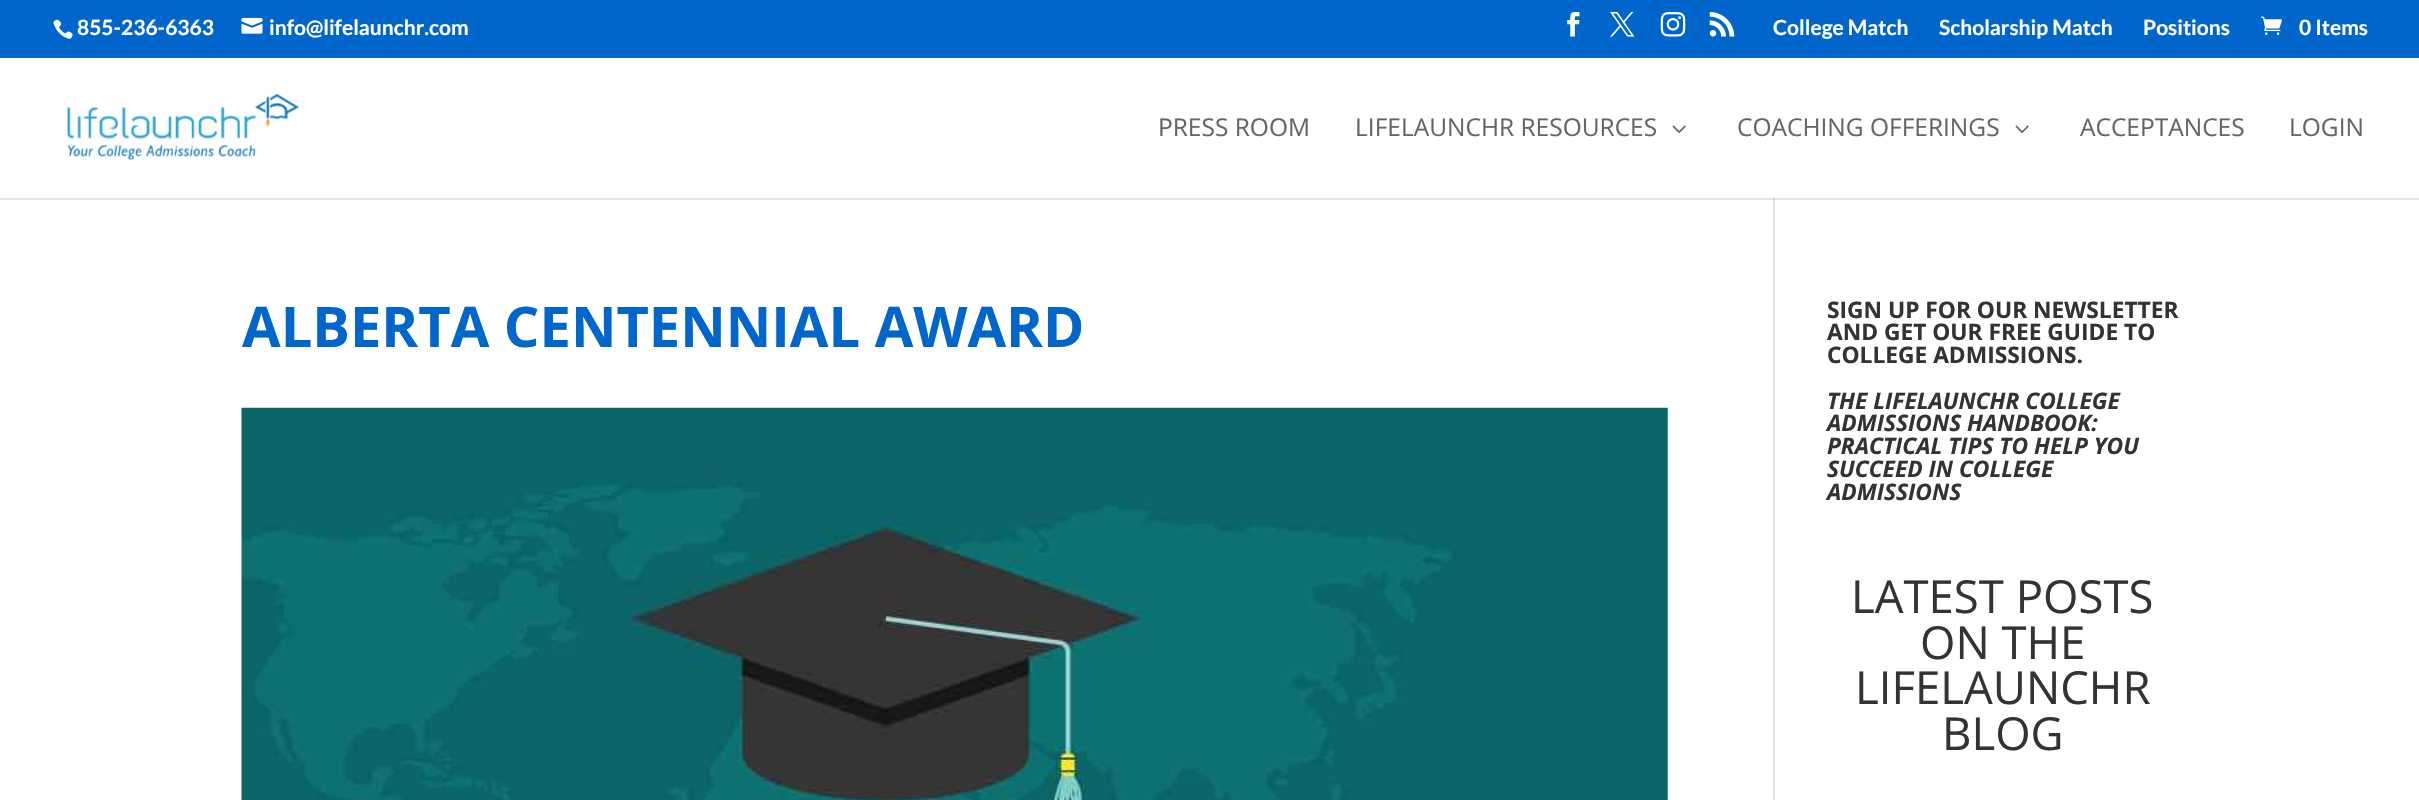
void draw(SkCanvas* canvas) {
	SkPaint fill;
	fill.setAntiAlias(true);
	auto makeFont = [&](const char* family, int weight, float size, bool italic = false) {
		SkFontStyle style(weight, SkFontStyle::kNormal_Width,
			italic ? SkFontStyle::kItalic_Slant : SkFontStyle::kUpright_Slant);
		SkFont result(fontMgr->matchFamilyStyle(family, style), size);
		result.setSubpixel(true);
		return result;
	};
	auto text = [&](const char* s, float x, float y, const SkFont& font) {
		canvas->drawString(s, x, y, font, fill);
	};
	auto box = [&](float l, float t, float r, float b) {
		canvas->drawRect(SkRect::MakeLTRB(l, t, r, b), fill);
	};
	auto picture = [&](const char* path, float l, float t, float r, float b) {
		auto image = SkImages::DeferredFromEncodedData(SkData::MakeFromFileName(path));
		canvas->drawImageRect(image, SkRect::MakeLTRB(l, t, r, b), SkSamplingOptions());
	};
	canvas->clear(0xFFFFFFFF);
	fill.setColor(0xFFE6E6E6);
	box(0, 198, 2419, 200);
	fill.setColor(0xFF0066CC);
	box(0, 0, 2419, 58);
	picture("image0.png", 53, 19, 73, 39);
	picture("image1.png", 241, 17, 263, 34);
	picture("image2.png", 1567, 12, 1580, 37);
	picture("image3.png", 1610, 12, 1635, 37);
	picture("image4.png", 1660, 12, 1686, 37);
	picture("image5.png", 1709, 12, 1735, 37);
	picture("image6.png", 2261, 16, 2282, 35);
	picture("image7.png", 66, 93, 299, 160);
	picture("image8.png", 1672, 125, 1686, 133);
	picture("image8.png", 2015, 125, 2029, 133);
	fill.setColor(0xFFE2E2E2);
	box(1773, 198, 1775, 800);
	fill.setColor(0xFFCBCBCB);
	box(1773, 198, 1775, 200);
	picture("image9.png", 241, 407, 1668, 800);
	auto font1 = makeFont("Lato", 700, 21);
	fill.setColor(0xFFFFFFFF);
	text("855-236-6363", 77, 35, font1);
	text("info@lifelaunchr.com", 269, 35, font1);
	text("College Match", 1773, 35, font1);
	text("Scholarship Match", 1939, 35, font1);
	text("Positions", 2143, 35, font1);
	text("0 Items", 2299, 35, font1);
	auto font2 = makeFont("Open Sans", 400, 24.5f);
	fill.setColor(0xFF666666);
	text("PRESS ROOM", 1158, 136, font2);
	text("LIFELAUNCHR RESOURCES", 1355, 136, font2);
	text("COACHING OFFERINGS", 1737, 136, font2);
	text("ACCEPTANCES", 2080, 136, font2);
	text("LOGIN", 2289, 136, font2);
	auto font3 = makeFont("Open Sans", 700, 56);
	fill.setColor(0xFF0066CC);
	text("ALBERTA CENTENNIAL AWARD", 242, 347, font3);
	auto font4 = makeFont("Open Sans", 700, 22.75f);
	fill.setColor(0xFF333333);
	text("SIGN UP FOR OUR NEWSLETTER", 1827, 318, font4);
	text("AND GET OUR FREE GUIDE TO", 1827, 340, font4);
	text("COLLEGE ADMISSIONS.", 1827, 363, font4);
	auto font5 = makeFont("Open Sans", 700, 22.75f, true);
	text("THE LIFELAUNCHR COLLEGE", 1827, 409, font5);
	text("ADMISSIONS HANDBOOK:", 1827, 431, font5);
	text("PRACTICAL TIPS TO HELP YOU", 1827, 454, font5);
	text("SUCCEED IN COLLEGE", 1827, 477, font5);
	text("ADMISSIONS", 1827, 500, font5);
	auto font6 = makeFont("Open Sans", 400, 45.5f);
	text("LATEST POSTS", 1851, 613, font6);
	text("ON THE", 1920, 659, font6);
	text("LIFELAUNCHR", 1855, 704, font6);
	text("BLOG", 1942, 750, font6);
}
